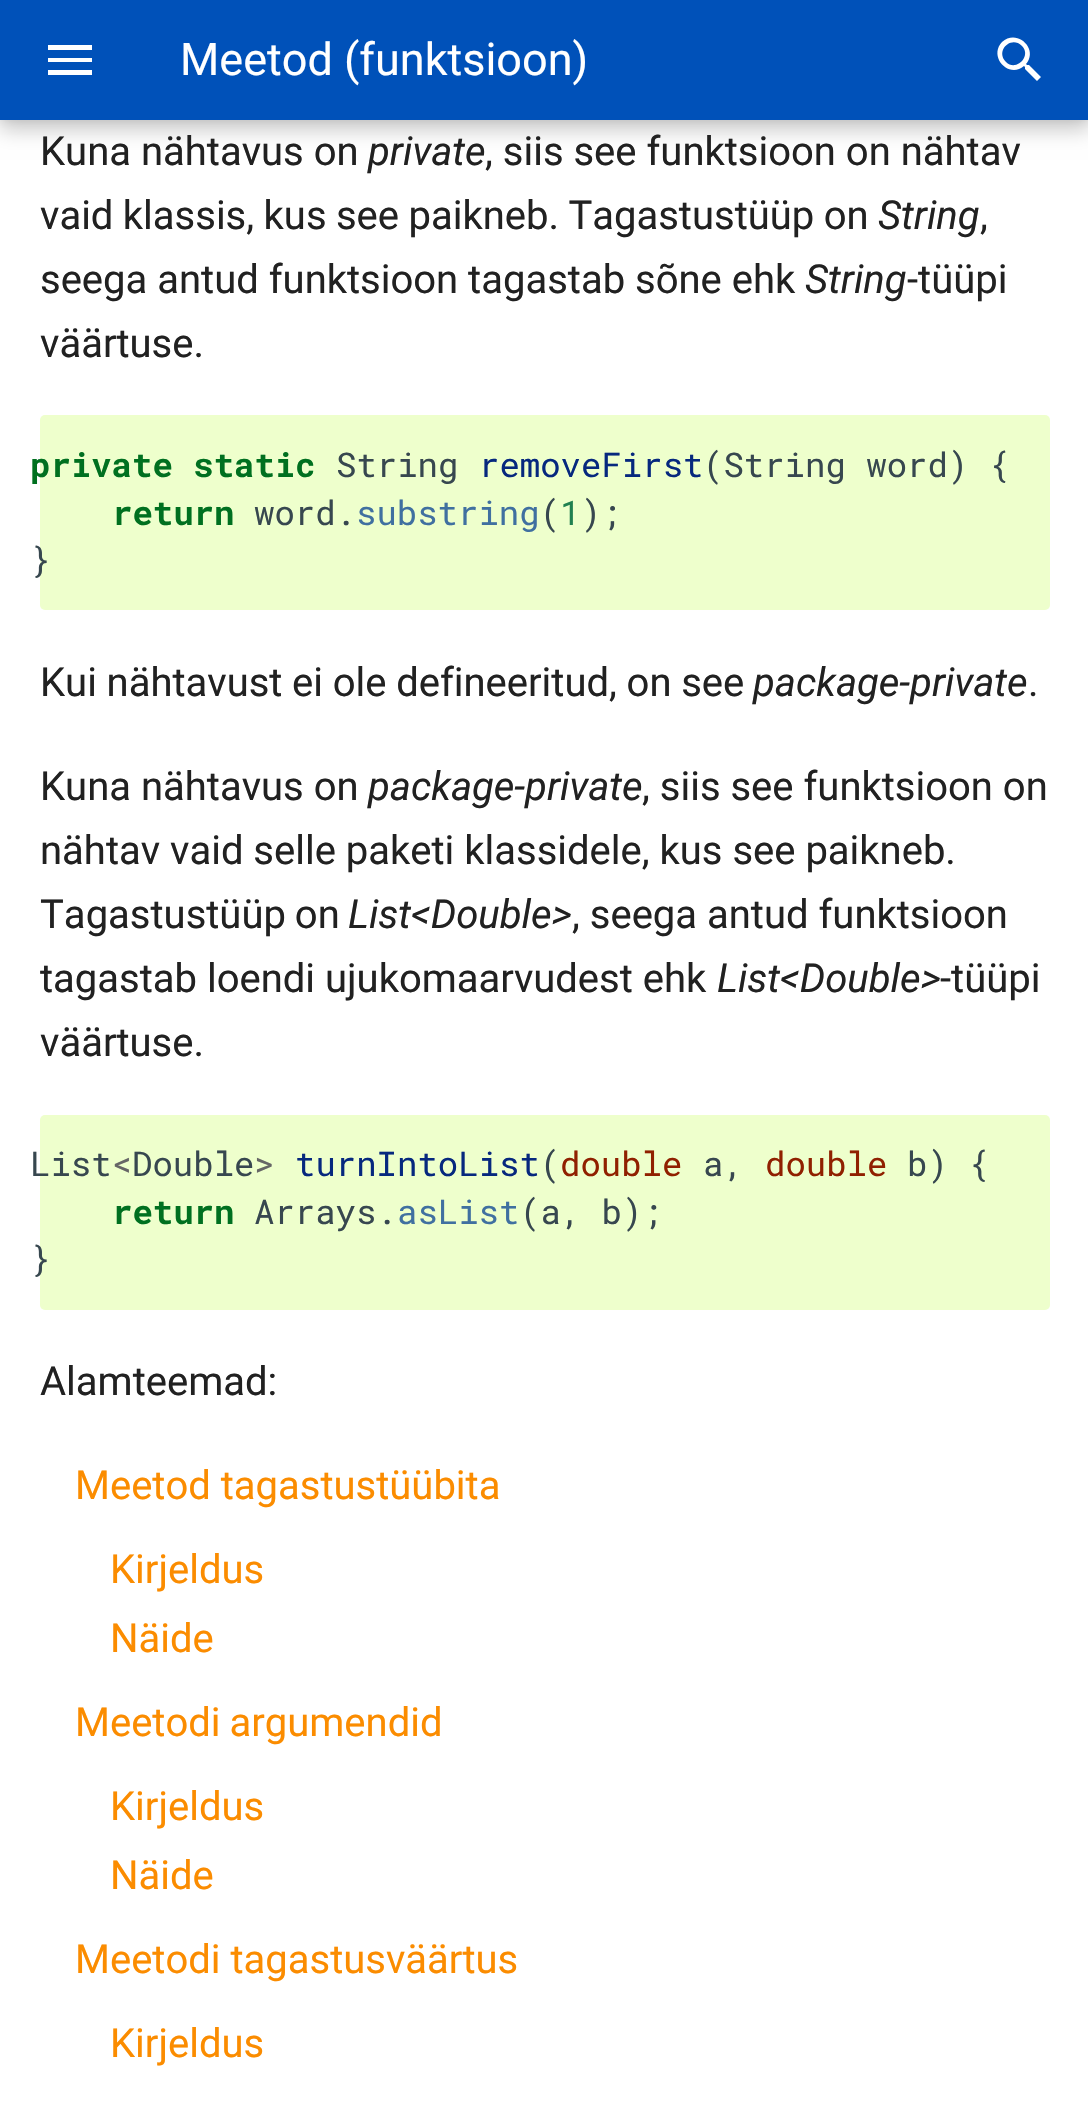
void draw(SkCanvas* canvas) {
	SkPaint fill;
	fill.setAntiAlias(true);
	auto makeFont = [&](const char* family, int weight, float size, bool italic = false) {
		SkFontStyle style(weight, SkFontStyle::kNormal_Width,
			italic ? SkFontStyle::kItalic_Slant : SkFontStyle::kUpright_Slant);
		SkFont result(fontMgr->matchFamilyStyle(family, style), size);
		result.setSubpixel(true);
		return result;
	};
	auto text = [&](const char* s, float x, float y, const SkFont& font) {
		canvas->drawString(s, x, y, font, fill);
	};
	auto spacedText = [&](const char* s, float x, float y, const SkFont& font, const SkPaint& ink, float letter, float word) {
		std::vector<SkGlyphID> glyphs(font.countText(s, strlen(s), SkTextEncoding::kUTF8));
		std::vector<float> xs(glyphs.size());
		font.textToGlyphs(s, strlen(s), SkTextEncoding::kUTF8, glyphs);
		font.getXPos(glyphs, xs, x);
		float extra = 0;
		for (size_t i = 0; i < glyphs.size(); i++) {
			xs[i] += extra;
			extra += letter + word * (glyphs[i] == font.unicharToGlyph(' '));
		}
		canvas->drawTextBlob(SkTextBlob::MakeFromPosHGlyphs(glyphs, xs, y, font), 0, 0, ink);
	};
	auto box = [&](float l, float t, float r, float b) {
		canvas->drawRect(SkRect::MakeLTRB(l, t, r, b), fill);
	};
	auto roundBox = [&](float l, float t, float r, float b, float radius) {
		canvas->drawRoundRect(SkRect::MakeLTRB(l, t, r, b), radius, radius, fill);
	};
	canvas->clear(0xFFFFFFFF);
	fill.setColor(0x33000000);
	fill.setMaskFilter(SkMaskFilter::MakeBlur(kNormal_SkBlurStyle, 10));
	canvas->drawRect(SkRect::MakeLTRB(0, 10, 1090, 130), fill);
	fill.setMaskFilter(nullptr);
	fill.setColor(0x1A000000);
	fill.setMaskFilter(SkMaskFilter::MakeBlur(kNormal_SkBlurStyle, 5));
	canvas->drawRect(SkRect::MakeLTRB(0, 0, 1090, 120), fill);
	fill.setMaskFilter(nullptr);
	fill.setColor(0xFF0051B9);
	box(0, 0, 1088, 120);
	fill.setColor(0xFFFFFFFF);
	canvas->drawPath(SkPathBuilder().moveTo(48, 45).lineTo(92, 45).lineTo(92, 50).lineTo(48, 50).close().moveTo(48, 62).lineTo(48, 58).lineTo(92, 58).lineTo(92, 62).close().moveTo(48, 75).lineTo(48, 70).lineTo(92, 70).lineTo(92, 75).close().detach(), fill);
	canvas->drawPath(SkPathBuilder().moveTo(1006, 62).cubicTo(1016, 72, 1032, 56, 1022, 46).cubicTo(1011, 35, 995, 51, 1006, 62).close().moveTo(1029, 65).lineTo(1041, 77).lineTo(1037, 81).lineTo(1025, 69).lineTo(1025, 67).lineTo(1024, 66).cubicTo(1009, 79, 988, 57, 1002, 42).cubicTo(1017, 28, 1039, 49, 1026, 64).lineTo(1027, 65).close().detach(), fill);
	fill.setColor(0xFFEEFFCC);
	roundBox(40, 415, 1050, 610, 5);
	roundBox(40, 1115, 1050, 1310, 5);
	auto font1 = makeFont("Roboto", 400, 45);
	fill.setColor(0xFFFFFFFF);
	text("Meetod (funktsioon)", 180, 75, font1);
	auto font2 = makeFont("Roboto", 400, 40);
	fill.setColor(0xFF212121);
	text("Kuna nähtavus on", 40, 165, font2);
	auto font3 = makeFont("Roboto", 400, 40, true);
	text("private", 368, 165, font3);
	text(", siis see funktsioon on nähtav", 485, 165, font2);
	spacedText("vaid klassis, kus see paikneb. Tagastustüüp on", 40, 229, font2, fill, 0, -0.5f);
	text("String", 878, 229, font3);
	text(",", 980, 229, font2);
	text("seega antud funktsioon tagastab sõne ehk", 40, 293, font2);
	text("String", 805, 293, font3);
	text("-tüüpi", 907, 293, font2);
	text("väärtuse.", 40, 357, font2);
	auto font4 = makeFont("Roboto Mono", 700, 34);
	fill.setColor(0xFF007020);
	text("private static", 30, 477, font4);
	auto font5 = makeFont("Roboto Mono", 400, 34);
	fill.setColor(0xFF37474F);
	text("String", 336, 477, font5);
	fill.setColor(0xFF06287E);
	text("removeFirst", 479, 477, font5);
	fill.setColor(0xFF37474F);
	text("(String word) {", 703, 477, font5);
	text("word.", 254, 525, font5);
	fill.setColor(0xFF4070A0);
	text("substring", 356, 525, font5);
	fill.setColor(0xFF37474F);
	text("( );", 540, 525, font5);
	fill.setColor(0xFF007020);
	text("return", 112, 525, font4);
	fill.setColor(0xFF208050);
	text("1", 560, 525, font5);
	fill.setColor(0xFF37474F);
	text("}", 30, 572, font5);
	fill.setColor(0xFF212121);
	spacedText("Kui nähtavust ei ole defineeritud, on see", 40, 696, font2, fill, 0, -0.25f);
	text("package-private", 753, 696, font3);
	text(".", 1028, 696, font2);
	text("Kuna nähtavus on", 40, 800, font2);
	text("package-private", 368, 800, font3);
	text(", siis see funktsioon on", 642, 800, font2);
	text("nähtav vaid selle paketi klassidele, kus see paikneb.", 40, 864, font2);
	spacedText("Tagastustüüp on", 40, 928, font2, fill, 0, -1);
	text("List<Double>", 348, 928, font3);
	text(", seega antud funktsioon", 572, 928, font2);
	text("tagastab loendi ujukomaarvudest ehk", 40, 992, font2);
	text("List<Double>", 717, 992, font3);
	text("-tüüpi", 940, 992, font2);
	text("väärtuse.", 40, 1056, font2);
	fill.setColor(0xFF37474F);
	text("List Double", 30, 1176, font5);
	fill.setColor(0xFF06287E);
	text("turnIntoList", 295, 1176, font5);
	fill.setColor(0xFF37474F);
	text("(", 540, 1176, font5);
	fill.setColor(0xFF902000);
	text("double", 560, 1176, font5);
	text("double", 765, 1176, font5);
	fill.setColor(0xFF37474F);
	text("b) {", 907, 1176, font5);
	fill.setColor(0xFF666666);
	text("<", 112, 1176, font5);
	text(">", 254, 1176, font5);
	fill.setColor(0xFF37474F);
	text("a,", 703, 1176, font5);
	fill.setColor(0xFF007020);
	text("return", 112, 1224, font4);
	fill.setColor(0xFF37474F);
	text("Arrays.", 254, 1224, font5);
	fill.setColor(0xFF4070A0);
	text("asList", 397, 1224, font5);
	fill.setColor(0xFF37474F);
	text("(a, b);", 520, 1224, font5);
	text("}", 30, 1271, font5);
	fill.setColor(0xFF212121);
	text("Alamteemad:", 40, 1395, font2);
	fill.setColor(0xFFFB8C00);
	text("Meetod tagastustüübita", 75, 1499, font2);
	text("Kirjeldus", 110, 1583, font2);
	text("Näide", 110, 1652, font2);
	spacedText("Meetodi argumendid", 75, 1736, font2, fill, 0, -1);
	text("Kirjeldus", 110, 1820, font2);
	text("Näide", 110, 1889, font2);
	text("Meetodi tagastusväärtus", 75, 1973, font2);
	text("Kirjeldus", 110, 2057, font2);
}
